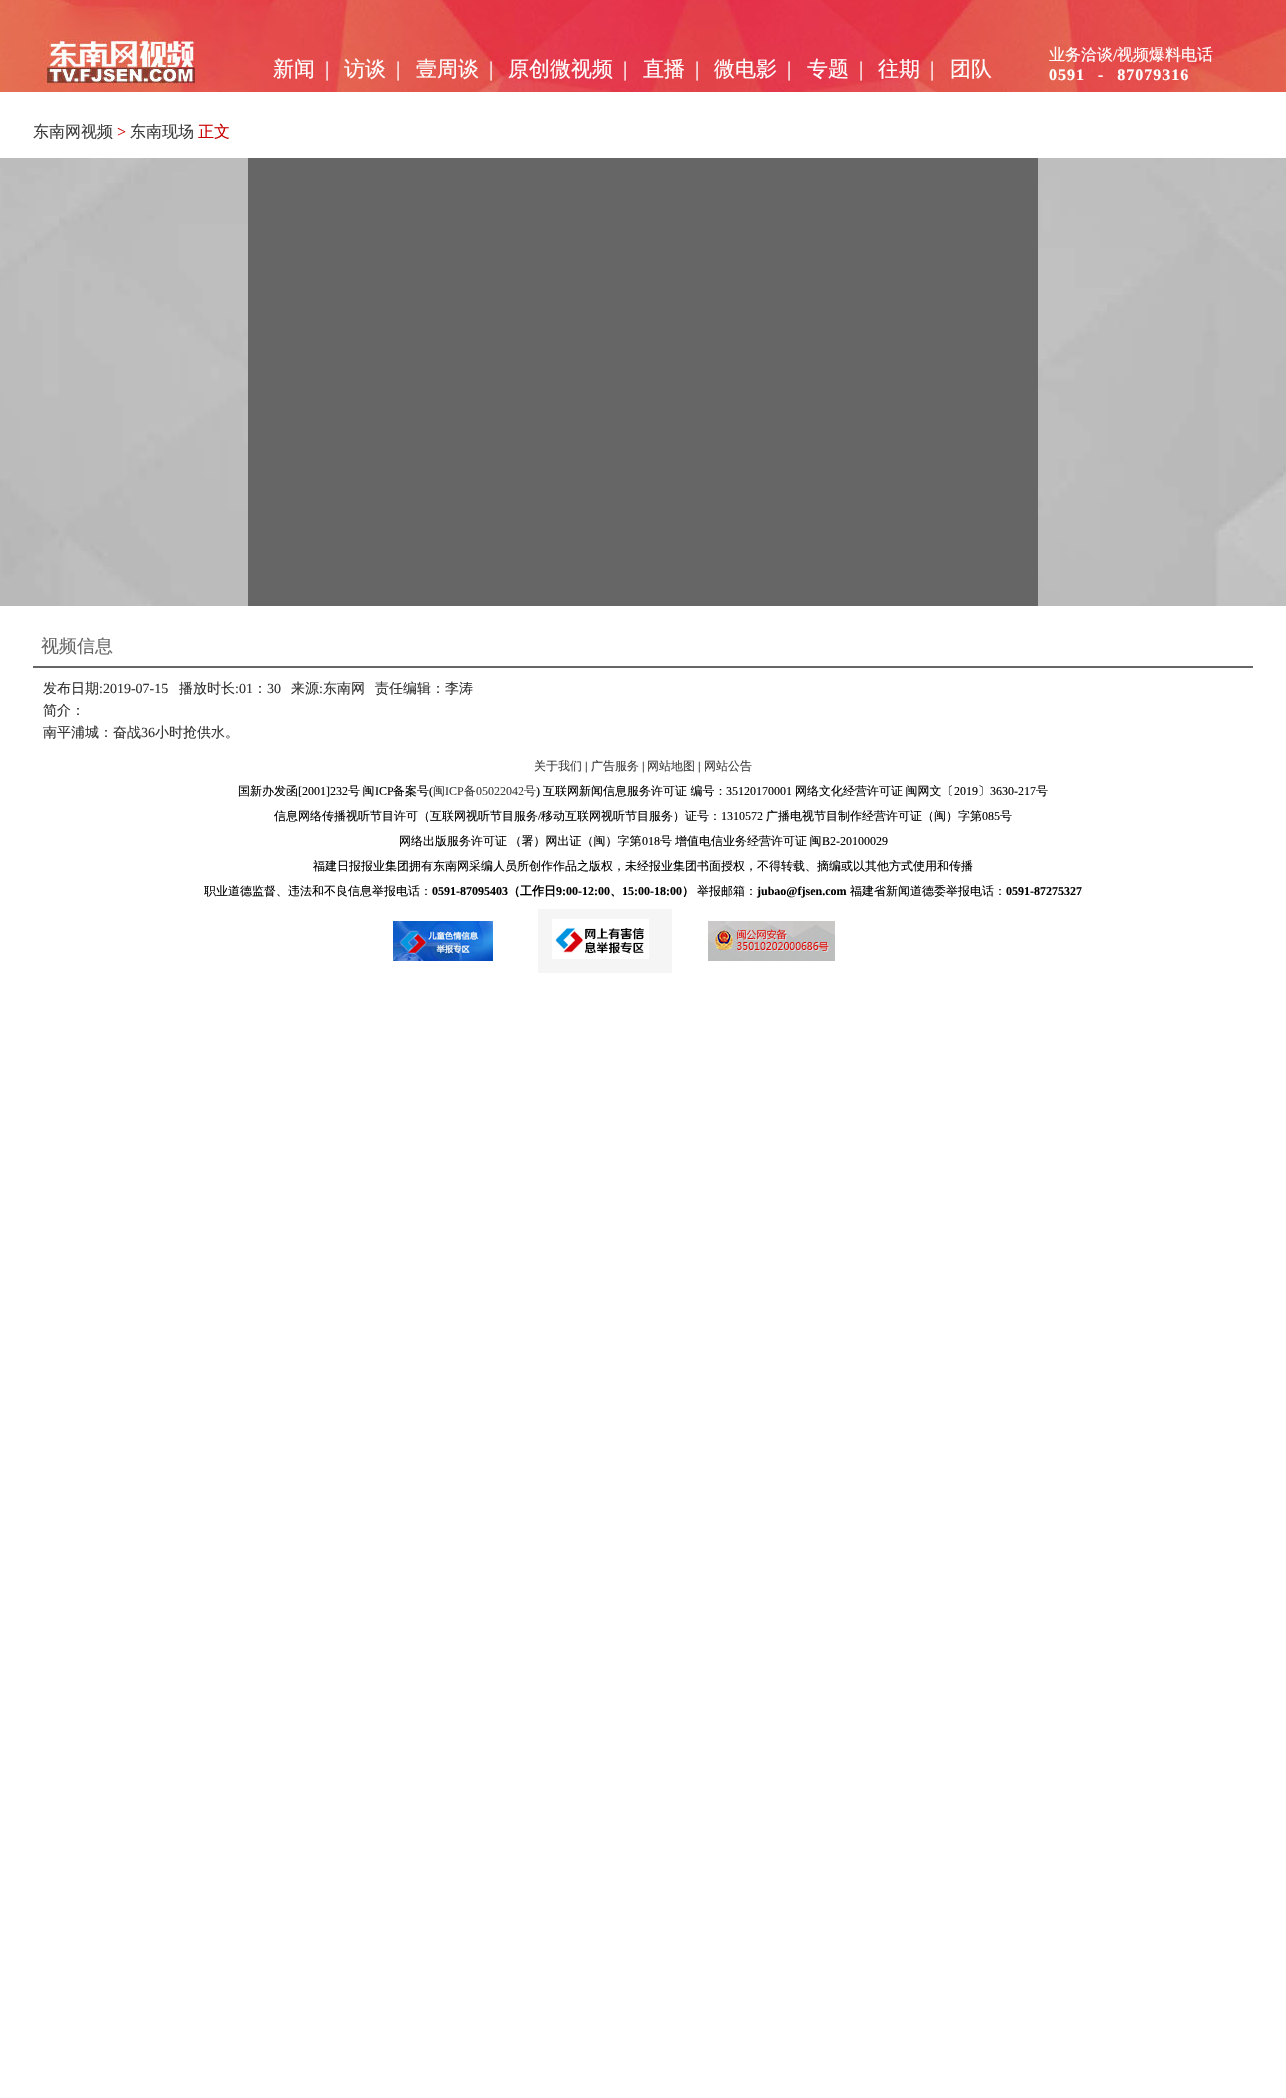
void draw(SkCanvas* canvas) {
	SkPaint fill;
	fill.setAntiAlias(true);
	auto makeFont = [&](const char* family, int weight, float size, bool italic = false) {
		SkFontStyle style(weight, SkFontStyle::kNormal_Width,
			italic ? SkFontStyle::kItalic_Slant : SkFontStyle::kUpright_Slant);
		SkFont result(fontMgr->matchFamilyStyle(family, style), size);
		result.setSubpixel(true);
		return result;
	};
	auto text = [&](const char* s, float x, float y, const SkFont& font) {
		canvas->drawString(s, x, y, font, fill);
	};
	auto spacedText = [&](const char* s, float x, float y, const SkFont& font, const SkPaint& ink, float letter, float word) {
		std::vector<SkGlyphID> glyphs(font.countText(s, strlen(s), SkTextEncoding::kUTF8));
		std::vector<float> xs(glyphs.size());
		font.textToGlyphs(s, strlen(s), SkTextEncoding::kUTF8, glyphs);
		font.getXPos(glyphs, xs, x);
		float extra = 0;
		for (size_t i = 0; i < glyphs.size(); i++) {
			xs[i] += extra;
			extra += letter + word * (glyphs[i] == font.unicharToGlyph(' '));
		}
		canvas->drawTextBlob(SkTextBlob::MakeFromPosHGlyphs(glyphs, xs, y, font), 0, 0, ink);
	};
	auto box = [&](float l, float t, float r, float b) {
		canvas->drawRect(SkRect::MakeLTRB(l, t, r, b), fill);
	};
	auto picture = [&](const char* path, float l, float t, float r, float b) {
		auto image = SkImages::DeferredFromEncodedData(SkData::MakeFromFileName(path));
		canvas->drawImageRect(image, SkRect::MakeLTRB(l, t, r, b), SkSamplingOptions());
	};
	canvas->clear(0xFFFFFFFF);
	picture("image0.png", 0, 0, 1286, 92);
	picture("image1.png", 0, 158, 1286, 606);
	fill.setColor(0xFF666666);
	box(248, 158, 1038, 606);
	box(33, 666, 1253, 668);
	picture("image2.png", 393, 921, 493, 961);
	picture("image3.png", 538, 909, 672, 973);
	picture("image4.png", 708, 921, 835, 961);
	auto font1 = makeFont("WenQuanYi Zen Hei", 500, 21);
	fill.setColor(0xFFFFFFFF);
	text("新闻", 273, 76, font1);
	auto font2 = makeFont("Liberation Serif", 400, 21);
	text("|", 325, 76, font2);
	text("访谈", 344, 76, font1);
	text("|", 396, 76, font2);
	text("壹周谈", 416, 76, font1);
	text("|", 489, 76, font2);
	text("原创微视频", 508, 76, font1);
	text("|", 623, 76, font2);
	text("直播", 643, 76, font1);
	text("|", 695, 76, font2);
	text("微电影", 714, 76, font1);
	text("|", 787, 76, font2);
	text("专题", 807, 76, font1);
	text("|", 859, 76, font2);
	text("往期", 878, 76, font1);
	text("|", 930, 76, font2);
	text("团队", 950, 76, font1);
	auto font3 = makeFont("WenQuanYi Zen Hei", 500, 16);
	text("业务洽谈", 1049, 60, font3);
	auto font4 = makeFont("Liberation Serif", 400, 16);
	text("/", 1113, 60, font4);
	text("视频爆料电话", 1117, 60, font3);
	auto font5 = makeFont("Liberation Serif", 700, 16);
	spacedText("0591 - 87079316", 1049, 80, font5, fill, 1, 8);
	fill.setColor(0xFF3D3D3D);
	text("东南网视频", 33, 137, font3);
	fill.setColor(0xFFCA0000);
	text(">", 117, 137, font4);
	fill.setColor(0xFF3D3D3D);
	text("东南现场", 130, 137, font3);
	fill.setColor(0xFFCA0000);
	text("正文", 198, 137, font3);
	auto font6 = makeFont("WenQuanYi Zen Hei", 500, 18);
	fill.setColor(0xFF666666);
	text("视频信息", 41, 652, font6);
	auto font7 = makeFont("WenQuanYi Zen Hei", 500, 14);
	fill.setColor(0xFF333333);
	text("发布日期", 43, 693, font7);
	auto font8 = makeFont("Liberation Serif", 400, 14);
	text(":2019-07-15", 99, 693, font8);
	text("播放时长", 179, 693, font7);
	text(":01", 235, 693, font8);
	text("：", 253, 693, font7);
	text("30", 267, 693, font8);
	text("来源", 291, 693, font7);
	text(":", 319, 693, font8);
	text("东南网", 323, 693, font7);
	text("责任编辑：李涛", 375, 693, font7);
	text("简介：", 43, 715, font7);
	text("南平浦城：奋战", 43, 737, font7);
	text("36", 141, 737, font8);
	text("小时抢供水。", 155, 737, font7);
	auto font9 = makeFont("WenQuanYi Zen Hei", 500, 12);
	fill.setColor(0xFF3D3D3D);
	text("关于我们", 534, 770, font9);
	auto font10 = makeFont("Liberation Serif", 400, 12);
	fill.setColor(0xFF000000);
	text("|", 585, 770, font10);
	fill.setColor(0xFF3D3D3D);
	text("广告服务", 591, 770, font9);
	fill.setColor(0xFF000000);
	text("|", 642, 770, font10);
	fill.setColor(0xFF3D3D3D);
	text("网站地图", 647, 770, font9);
	fill.setColor(0xFF000000);
	text("|", 698, 770, font10);
	fill.setColor(0xFF3D3D3D);
	text("网站公告", 704, 770, font9);
	fill.setColor(0xFF000000);
	text("国新办发函", 238, 795, font9);
	text("[2001]232", 298, 795, font10);
	spacedText("号 闽", 348, 795, font9, fill, 0, -1);
	text("ICP", 375, 795, font10);
	text("备案号", 393, 795, font9);
	text("(", 429, 795, font10);
	fill.setColor(0xFF3D3D3D);
	text("闽", 433, 795, font9);
	text("ICP", 445, 795, font10);
	text("备", 464, 795, font9);
	text("05022042", 476, 795, font10);
	text("号", 524, 795, font9);
	fill.setColor(0xFF000000);
	text(")", 536, 795, font10);
	text("互联网新闻信息服务许可证 编号：", 543, 795, font9);
	text("35120170001", 726, 795, font10);
	spacedText("网络文化经营许可证 闽网文〔", 795, 795, font9, fill, 0, -1);
	text("2019", 954, 795, font10);
	text("〕", 978, 795, font9);
	text("3630-217", 990, 795, font10);
	text("号", 1036, 795, font9);
	text("信息网络传播视听节目许可（互联网视听节目服务", 274, 820, font9);
	text("/", 538, 820, font10);
	text("移动互联网视听节目服务）证号：", 541, 820, font9);
	text("1310572", 721, 820, font10);
	text("广播电视节目制作经营许可证（闽）字第", 766, 820, font9);
	text("085", 982, 820, font10);
	text("号", 1000, 820, font9);
	spacedText("网络出版服务许可证 （署）网出证（闽）字第", 399, 845, font9, fill, 0, -1);
	text("018", 642, 845, font10);
	text("号", 660, 845, font9);
	spacedText("增值电信业务经营许可证 闽", 675, 845, font9, fill, 0, -1);
	text("B2-20100029", 822, 845, font10);
	text("福建日报报业集团拥有东南网采编人员所创作作品之版权，未经报业集团书面授权，不得转载、摘编或以其他方式使用和传播", 313, 870, font9);
	text("职业道德监督、违法和不良信息举报电话：", 204, 895, font9);
	auto font11 = makeFont("Liberation Serif", 700, 12);
	text("0591-87095403", 432, 895, font11);
	auto font12 = makeFont("WenQuanYi Zen Hei", 700, 12);
	text("（工作日", 508, 895, font12);
	text("9:00-12:00", 556, 895, font11);
	text("、", 610, 895, font12);
	text("15:00-18:00", 622, 895, font11);
	text("）", 682, 895, font12);
	text("举报邮箱：", 697, 895, font9);
	text("jubao@fjsen.com", 757, 895, font11);
	text("福建省新闻道德委举报电话：", 850, 895, font9);
	text("0591-87275327", 1006, 895, font11);
}
